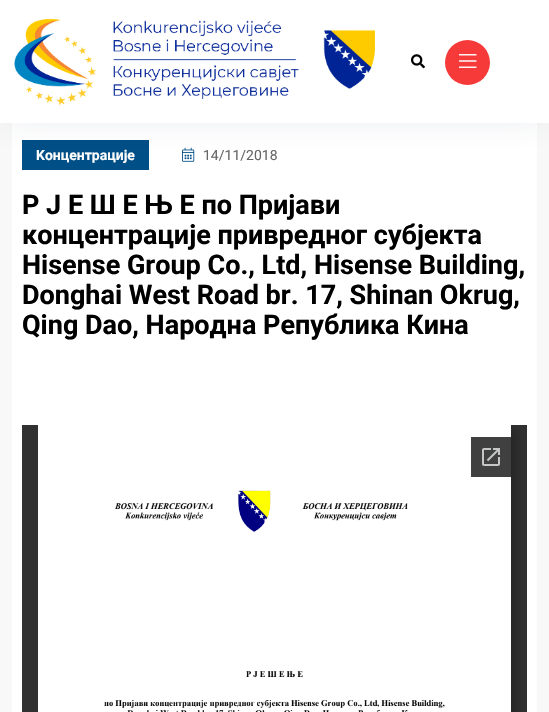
void draw(SkCanvas* canvas) {
	SkPaint fill;
	fill.setAntiAlias(true);
	auto makeFont = [&](const char* family, int weight, float size, bool italic = false) {
		SkFontStyle style(weight, SkFontStyle::kNormal_Width,
			italic ? SkFontStyle::kItalic_Slant : SkFontStyle::kUpright_Slant);
		SkFont result(fontMgr->matchFamilyStyle(family, style), size);
		result.setSubpixel(true);
		return result;
	};
	auto text = [&](const char* s, float x, float y, const SkFont& font) {
		canvas->drawString(s, x, y, font, fill);
	};
	auto box = [&](float l, float t, float r, float b) {
		canvas->drawRect(SkRect::MakeLTRB(l, t, r, b), fill);
	};
	auto picture = [&](const char* path, float l, float t, float r, float b) {
		auto image = SkImages::DeferredFromEncodedData(SkData::MakeFromFileName(path));
		canvas->drawImageRect(image, SkRect::MakeLTRB(l, t, r, b), SkSamplingOptions());
	};
	canvas->clear(0xFFF8F8F8);
	fill.setColor(0xFFFFFFFF);
	box(12, 123, 537, 712);
	fill.setColor(0xFF004E87);
	box(22, 140, 149, 170);
	picture("image3.png", 182, 147, 195, 162);
	fill.setColor(0x262E3F63);
	fill.setMaskFilter(SkMaskFilter::MakeBlur(kNormal_SkBlurStyle, 19));
	canvas->drawRect(SkRect::MakeLTRB(0, -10, 549, 113), fill);
	fill.setMaskFilter(nullptr);
	fill.setColor(0xFFFFFFFF);
	box(0, 0, 549, 123);
	picture("image0.png", 14, 18, 375, 106);
	picture("image1.png", 411, 54, 425, 69);
	fill.setColor(0xFFF63A3A);
	canvas->drawCircle(467.5f, 62.5f, 22.5f, fill);
	picture("image2.png", 459, 54, 477, 68);
	picture("image4.png", 22, 425, 527, 712);
	auto font1 = makeFont("Roboto", 700, 14);
	fill.setColor(0xFFFFFFFF);
	text("Kонцентрације", 36, 160, font1);
	auto font2 = makeFont("Roboto", 400, 14);
	fill.setColor(0xFF666666);
	text("14/11/2018", 203, 160, font2);
	auto font3 = makeFont("Roboto", 700, 27);
	fill.setColor(0xFF000000);
	text("Р Ј Е Ш Е Њ Е по Пријави", 22, 214, font3);
	text("концентрације привредног субјекта", 22, 244, font3);
	text("Hisense Group Co., Ltd, Hisense Building,", 22, 274, font3);
	text("Donghai West Road br. 17, Shinan Okrug,", 22, 304, font3);
	text("Qing Dao, Народна Република Кина", 22, 334, font3);
}
